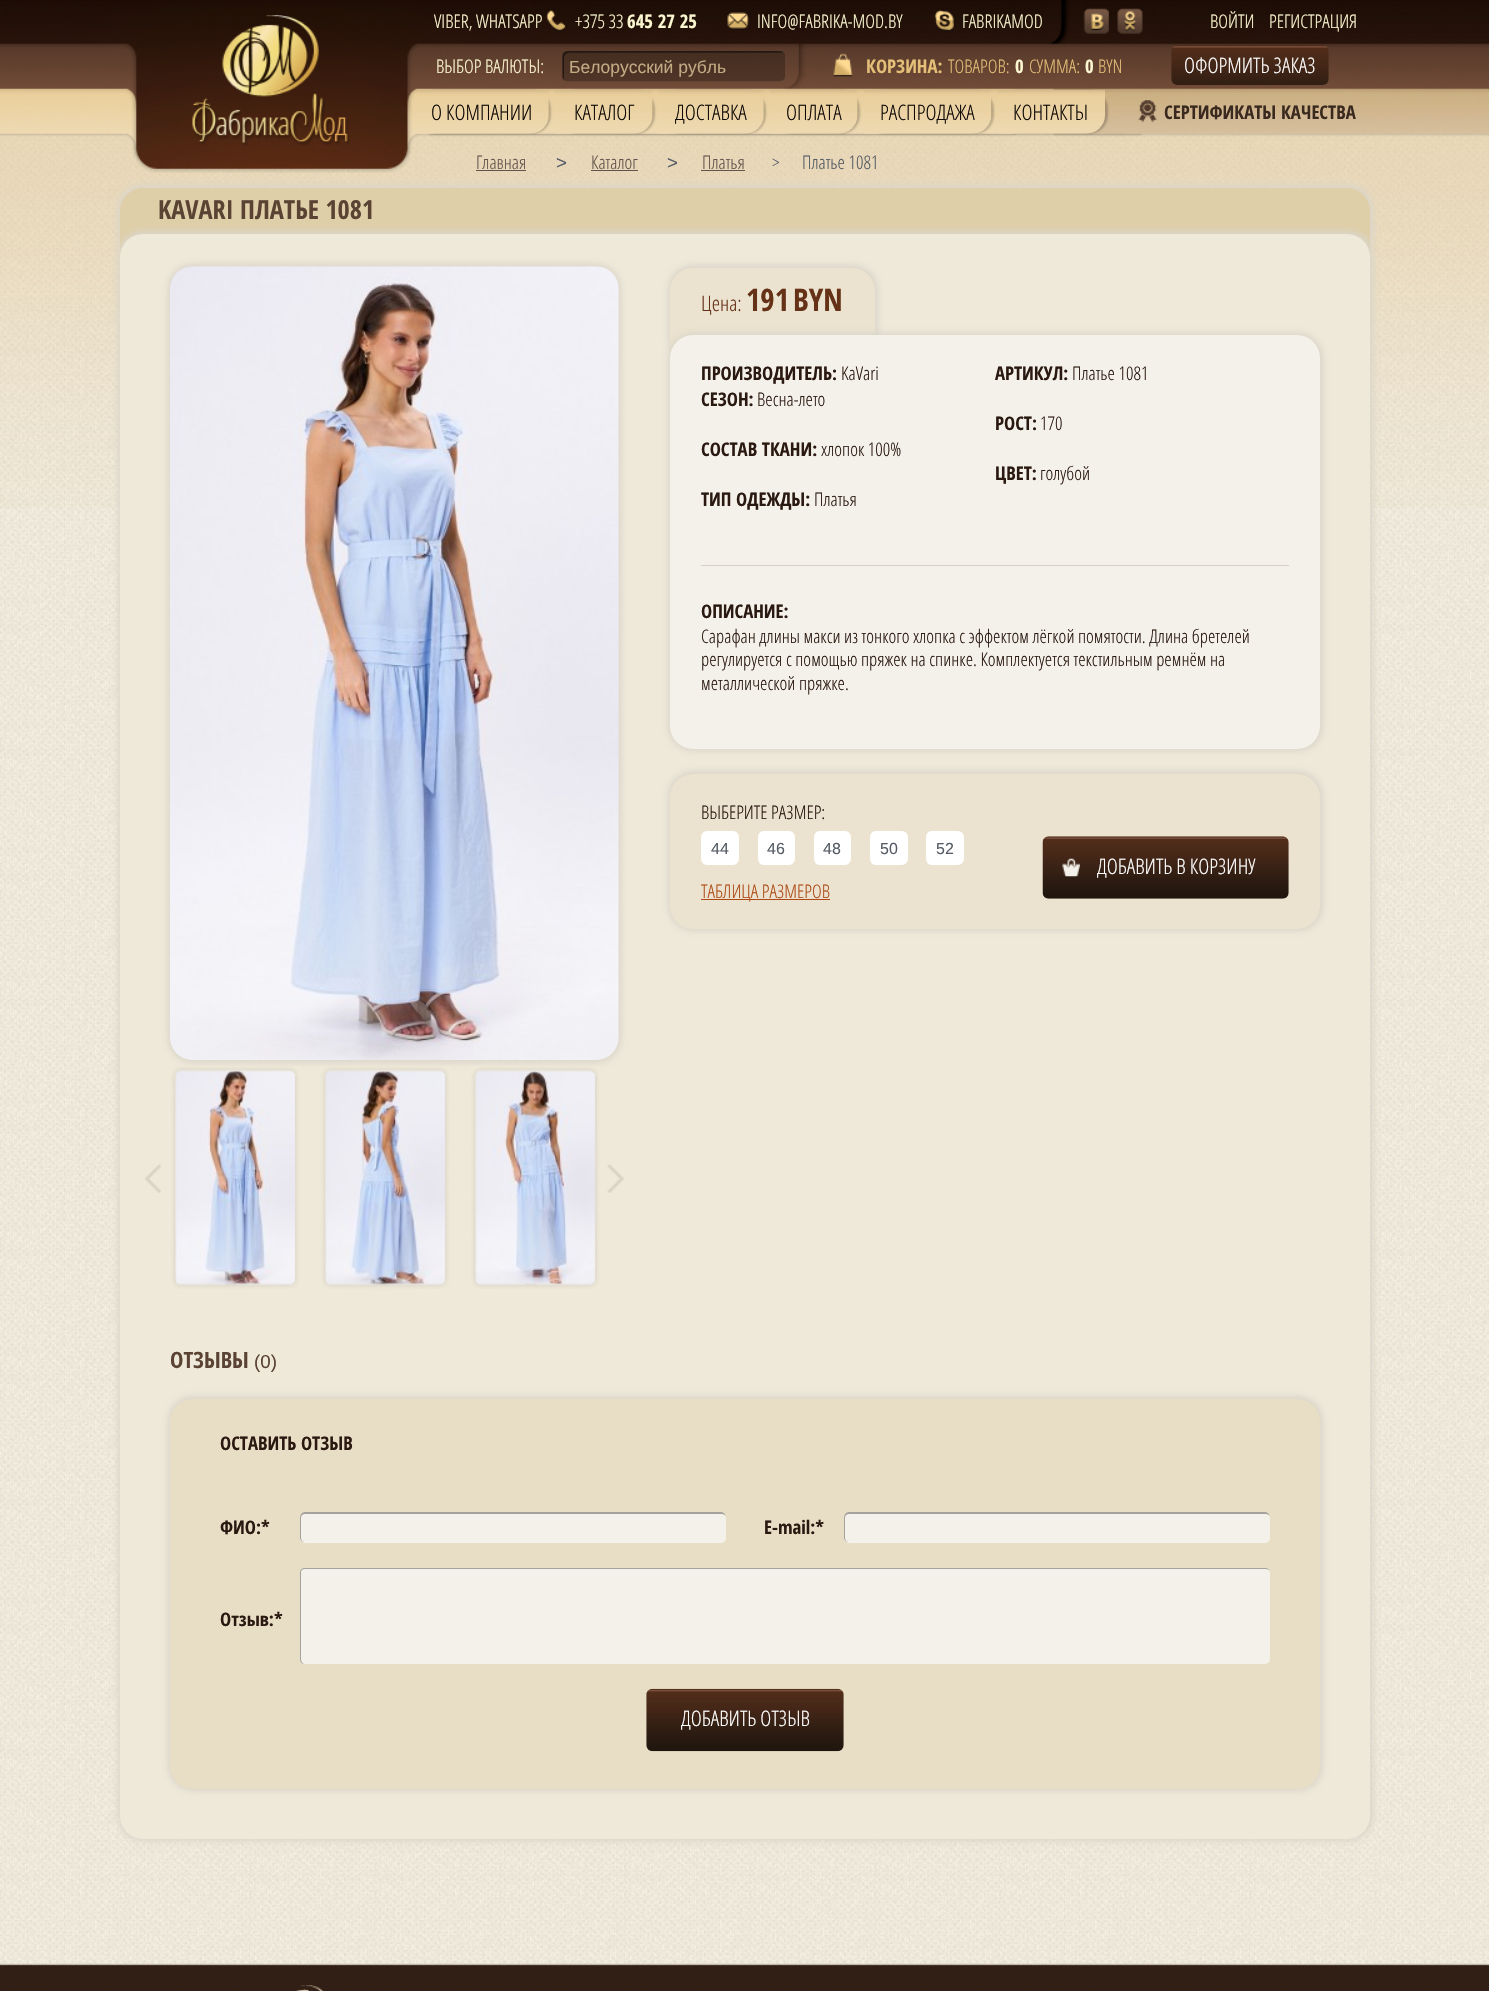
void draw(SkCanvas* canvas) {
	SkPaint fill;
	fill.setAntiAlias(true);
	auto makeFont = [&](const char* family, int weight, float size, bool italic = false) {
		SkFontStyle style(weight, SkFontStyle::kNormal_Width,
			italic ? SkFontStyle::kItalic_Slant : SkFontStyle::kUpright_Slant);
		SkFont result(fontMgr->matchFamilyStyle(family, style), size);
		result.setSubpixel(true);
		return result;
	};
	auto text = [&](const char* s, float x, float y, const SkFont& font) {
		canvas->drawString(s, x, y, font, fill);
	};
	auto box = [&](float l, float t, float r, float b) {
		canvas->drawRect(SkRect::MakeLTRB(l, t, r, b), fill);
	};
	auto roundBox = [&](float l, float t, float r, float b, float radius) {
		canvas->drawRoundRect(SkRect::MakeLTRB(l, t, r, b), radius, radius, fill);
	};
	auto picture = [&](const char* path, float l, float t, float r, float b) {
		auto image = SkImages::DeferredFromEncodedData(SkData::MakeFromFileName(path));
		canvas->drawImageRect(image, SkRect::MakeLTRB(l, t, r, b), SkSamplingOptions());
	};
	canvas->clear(0xFFFFFFFF);
	picture("image0.png", 0, 133, 1489, 1966);
	picture("image1.png", 0, 133, 1489, 508);
	picture("image2.png", 0, 0, 1489, 173);
	picture("image3.png", 192, 15, 350, 146);
	picture("image4.png", 546, 10, 566, 32);
	picture("image5.png", 727, 12, 749, 30);
	picture("image6.png", 934, 10, 954, 32);
	picture("image7.png", 1083, 8, 1109, 34);
	picture("image8.png", 1117, 8, 1143, 34);
	picture("image9.png", 562, 51, 785, 82);
	picture("image10.png", 833, 53, 853, 77);
	picture("image11.png", 1171, 45, 1329, 85);
	fill.setColor(0x33000000);
	fill.setMaskFilter(SkMaskFilter::MakeBlur(kNormal_SkBlurStyle, 1));
	canvas->drawRoundRect(SkRect::MakeLTRB(418, 90, 551, 134), 19, 19, fill);
	fill.setMaskFilter(nullptr);
	picture("image12.png", 415, 90, 549, 134);
	fill.setMaskFilter(SkMaskFilter::MakeBlur(kNormal_SkBlurStyle, 1));
	canvas->drawRoundRect(SkRect::MakeLTRB(558, 90, 655, 134), 19, 19, fill);
	fill.setMaskFilter(nullptr);
	picture("image13.png", 555, 90, 653, 134);
	fill.setMaskFilter(SkMaskFilter::MakeBlur(kNormal_SkBlurStyle, 1));
	canvas->drawRoundRect(SkRect::MakeLTRB(661, 90, 766, 134), 19, 19, fill);
	fill.setMaskFilter(nullptr);
	picture("image14.png", 659, 90, 764, 134);
	fill.setMaskFilter(SkMaskFilter::MakeBlur(kNormal_SkBlurStyle, 1));
	canvas->drawRoundRect(SkRect::MakeLTRB(773, 90, 860, 134), 19, 19, fill);
	fill.setMaskFilter(nullptr);
	picture("image15.png", 770, 90, 858, 134);
	fill.setMaskFilter(SkMaskFilter::MakeBlur(kNormal_SkBlurStyle, 1));
	canvas->drawRoundRect(SkRect::MakeLTRB(866, 90, 994, 134), 19, 19, fill);
	fill.setMaskFilter(nullptr);
	picture("image16.png", 864, 90, 991, 134);
	fill.setMaskFilter(SkMaskFilter::MakeBlur(kNormal_SkBlurStyle, 1));
	canvas->drawRoundRect(SkRect::MakeLTRB(1000, 90, 1108, 134), 19, 19, fill);
	fill.setMaskFilter(nullptr);
	picture("image17.png", 998, 90, 1105, 134);
	picture("image18.png", 1138, 100, 1157, 123);
	fill.setColor(0xFF62544C);
	box(476, 170, 526, 171);
	box(591, 170, 638, 171);
	box(701, 170, 745, 171);
	fill.setColor(0xFFDBD6CA);
	fill.setMaskFilter(SkMaskFilter::MakeBlur(kNormal_SkBlurStyle, 3));
	canvas->drawRoundRect(SkRect::MakeLTRB(118, 185, 1373, 259), 25, 25, fill);
	fill.setMaskFilter(nullptr);
	fill.setColor(0xFFDFCFA8);
	canvas->drawPath(SkPathBuilder().moveTo(143, 188).lineTo(1347, 188).cubicTo(1359.5f, 188, 1370, 198.5f, 1370, 211).lineTo(1370, 256).lineTo(120, 256).lineTo(120, 211).cubicTo(120, 198.5f, 130.5f, 188, 143, 188).close().detach(), fill);
	fill.setColor(0xFFDBD6CA);
	fill.setMaskFilter(SkMaskFilter::MakeBlur(kNormal_SkBlurStyle, 3));
	canvas->drawRoundRect(SkRect::MakeLTRB(118, 231, 1373, 1841), 25, 25, fill);
	fill.setMaskFilter(nullptr);
	fill.setColor(0xFFEFE9DA);
	roundBox(120, 234, 1370, 1839, 23);
	fill.setColor(0xFFDBD6CA);
	fill.setMaskFilter(SkMaskFilter::MakeBlur(kNormal_SkBlurStyle, 3));
	canvas->drawRoundRect(SkRect::MakeLTRB(168, 264, 621, 1063), 25, 25, fill);
	fill.setMaskFilter(nullptr);
	picture("image19.png", 170, 266, 619, 1060);
	picture("image21.png", 170, 1070, 300, 1290);
	picture("image20.png", 170, 1066, 300, 1290);
	picture("image23.png", 320, 1070, 450, 1290);
	picture("image22.png", 320, 1066, 450, 1290);
	picture("image25.png", 470, 1070, 600, 1290);
	picture("image24.png", 470, 1066, 600, 1290);
	picture("image26.png", 145, 1164, 161, 1193);
	picture("image27.png", 607, 1164, 624, 1193);
	fill.setMaskFilter(SkMaskFilter::MakeBlur(kNormal_SkBlurStyle, 3));
	canvas->drawRoundRect(SkRect::MakeLTRB(668, 265, 878, 360), 25, 25, fill);
	fill.setMaskFilter(nullptr);
	fill.setColor(0xFFEBE3CF);
	canvas->drawPath(SkPathBuilder().moveTo(693, 268).lineTo(852, 268).cubicTo(864.5f, 268, 875, 278.5f, 875, 291).lineTo(875, 358).lineTo(670, 358).lineTo(670, 291).cubicTo(670, 278.5f, 680.5f, 268, 693, 268).close().detach(), fill);
	fill.setColor(0xFFDBD6CA);
	fill.setMaskFilter(SkMaskFilter::MakeBlur(kNormal_SkBlurStyle, 3));
	canvas->drawRoundRect(SkRect::MakeLTRB(668, 333, 1323, 751), 25, 25, fill);
	fill.setMaskFilter(nullptr);
	fill.setColor(0xFFF4F1EA);
	roundBox(670, 335, 1320, 749, 23);
	fill.setColor(0xFFD6D1C3);
	box(701, 565, 1289, 566);
	fill.setColor(0xFFDBD6CA);
	fill.setMaskFilter(SkMaskFilter::MakeBlur(kNormal_SkBlurStyle, 3));
	canvas->drawRoundRect(SkRect::MakeLTRB(668, 771, 1323, 931), 25, 25, fill);
	fill.setMaskFilter(nullptr);
	fill.setColor(0xFFEBE3CF);
	roundBox(670, 774, 1320, 929, 23);
	fill.setColor(0xFFFFFFFF);
	canvas->drawRoundRect(SkRect::MakeLTRB(703, 833, 737, 863), 4, 4, fill);
	fill.setStyle(SkPaint::kStroke_Style);
	fill.setStrokeWidth(4);
	canvas->drawRoundRect(SkRect::MakeLTRB(703, 833, 737, 863), 4, 4, fill);
	fill.setStyle(SkPaint::kFill_Style);
	canvas->drawRoundRect(SkRect::MakeLTRB(760, 833, 793, 863), 4, 4, fill);
	fill.setStyle(SkPaint::kStroke_Style);
	canvas->drawRoundRect(SkRect::MakeLTRB(760, 833, 793, 863), 4, 4, fill);
	fill.setStyle(SkPaint::kFill_Style);
	canvas->drawRoundRect(SkRect::MakeLTRB(816, 833, 849, 863), 4, 4, fill);
	fill.setStyle(SkPaint::kStroke_Style);
	canvas->drawRoundRect(SkRect::MakeLTRB(816, 833, 849, 863), 4, 4, fill);
	fill.setStyle(SkPaint::kFill_Style);
	canvas->drawRoundRect(SkRect::MakeLTRB(872, 833, 906, 863), 4, 4, fill);
	fill.setStyle(SkPaint::kStroke_Style);
	canvas->drawRoundRect(SkRect::MakeLTRB(872, 833, 906, 863), 4, 4, fill);
	fill.setStyle(SkPaint::kFill_Style);
	canvas->drawRoundRect(SkRect::MakeLTRB(928, 833, 962, 863), 4, 4, fill);
	fill.setStyle(SkPaint::kStroke_Style);
	canvas->drawRoundRect(SkRect::MakeLTRB(928, 833, 962, 863), 4, 4, fill);
	fill.setStyle(SkPaint::kFill_Style);
	fill.setColor(0xFFAE4A16);
	box(701, 899, 830, 900);
	picture("image28.png", 1042, 836, 1289, 899);
	picture("image29.png", 1062, 858, 1080, 877);
	fill.setColor(0xFFDBD6CA);
	fill.setMaskFilter(SkMaskFilter::MakeBlur(kNormal_SkBlurStyle, 3));
	canvas->drawRoundRect(SkRect::MakeLTRB(168, 1396, 1323, 1791), 25, 25, fill);
	fill.setMaskFilter(nullptr);
	fill.setColor(0xFFE8DEC5);
	roundBox(170, 1399, 1320, 1789, 23);
	fill.setColor(0xFFF4F1EA);
	roundBox(300, 1513, 726, 1543, 5);
	fill.setColor(0xFFA4A29D);
	canvas->drawPath(SkPathBuilder(SkPathFillType::kEvenOdd).moveTo(305, 1512).lineTo(721, 1512).cubicTo(724, 1512, 726, 1515, 726, 1518).lineTo(726, 1538).cubicTo(726, 1540, 724, 1542, 721, 1542).lineTo(305, 1542).cubicTo(302, 1542, 300, 1540, 300, 1538).lineTo(300, 1518).cubicTo(300, 1515, 302, 1512, 305, 1512).close().moveTo(305, 1514).lineTo(721, 1514).cubicTo(724, 1514, 726, 1515, 726, 1518).lineTo(726, 1538).cubicTo(726, 1540, 724, 1542, 721, 1542).lineTo(305, 1542).cubicTo(303, 1542, 301, 1540, 301, 1538).lineTo(301, 1518).cubicTo(301, 1515, 303, 1514, 305, 1514).close().detach(), fill);
	fill.setColor(0xFFF4F1EA);
	roundBox(844, 1513, 1270, 1543, 5);
	fill.setColor(0xFFA4A29D);
	canvas->drawPath(SkPathBuilder(SkPathFillType::kEvenOdd).moveTo(849, 1512).lineTo(1265, 1512).cubicTo(1268, 1512, 1270, 1515, 1270, 1518).lineTo(1270, 1538).cubicTo(1270, 1540, 1268, 1542, 1265, 1542).lineTo(849, 1542).cubicTo(846, 1542, 844, 1540, 844, 1538).lineTo(844, 1518).cubicTo(844, 1515, 846, 1512, 849, 1512).close().moveTo(849, 1514).lineTo(1265, 1514).cubicTo(1268, 1514, 1270, 1515, 1270, 1518).lineTo(1270, 1538).cubicTo(1270, 1540, 1268, 1542, 1265, 1542).lineTo(849, 1542).cubicTo(847, 1542, 845, 1540, 845, 1538).lineTo(845, 1518).cubicTo(845, 1515, 847, 1514, 849, 1514).close().detach(), fill);
	fill.setColor(0xFFF4F1EA);
	roundBox(300, 1568, 1270, 1664, 5);
	fill.setColor(0xFFA4A29D);
	canvas->drawPath(SkPathBuilder(SkPathFillType::kEvenOdd).moveTo(305, 1568).lineTo(1265, 1568).cubicTo(1268, 1568, 1270, 1570, 1270, 1572).lineTo(1270, 1659).cubicTo(1270, 1662, 1268, 1664, 1265, 1664).lineTo(305, 1664).cubicTo(302, 1664, 300, 1662, 300, 1659).lineTo(300, 1572).cubicTo(300, 1570, 302, 1568, 305, 1568).close().moveTo(305, 1569).lineTo(1265, 1569).cubicTo(1268, 1569, 1270, 1570, 1270, 1572).lineTo(1270, 1659).cubicTo(1270, 1662, 1268, 1664, 1265, 1664).lineTo(305, 1664).cubicTo(303, 1664, 301, 1662, 301, 1659).lineTo(301, 1572).cubicTo(301, 1570, 303, 1569, 305, 1569).close().detach(), fill);
	picture("image30.png", 646, 1688, 844, 1752);
	picture("image31.png", 0, 1963, 1489, 1991);
	picture("image32.png", 296, 1985, 323, 1991);
	auto font1 = makeFont("Open Sans", 300, 18.75f);
	fill.setColor(0xFFFBF7D0);
	text("VIBER, WHATSAPP", 434, 28, font1);
	text("+375 33", 575, 28, font1);
	auto font2 = makeFont("Open Sans Condensed", 700, 18.75f);
	text("645 27 25", 627, 28, font2);
	text("INFO@FABRIKA-MOD.BY", 757, 28, font1);
	text("FABRIKAMOD", 962, 28, font1);
	text("ВОЙТИ", 1210, 28, font1);
	text("РЕГИСТРАЦИЯ", 1269, 28, font1);
	text("ВЫБОР ВАЛЮТЫ:", 436, 73, font1);
	auto font3 = makeFont("Liberation Sans", 400, 17.5f);
	fill.setColor(0xFFBFAA83);
	text("Белорусский рубль", 569, 73, font3);
	fill.setColor(0xFFE4BF78);
	text("КОРЗИНА:", 866, 73, font2);
	text("ТОВАРОВ:", 948, 73, font1);
	fill.setColor(0xFFFBF7D0);
	text("0", 1015, 73, font2);
	fill.setColor(0xFFE4BF78);
	text("СУММА:", 1029, 73, font1);
	fill.setColor(0xFFFBF7D0);
	text("0", 1085, 73, font2);
	fill.setColor(0xFFE4BF78);
	text("BYN", 1098, 73, font1);
	auto font4 = makeFont("Open Sans", 300, 21.25f);
	fill.setColor(0xFFFFFFFF);
	text("ОФОРМИТЬ ЗАКАЗ", 1184, 73, font4);
	fill.setColor(0xFF0E0905);
	text("О КОМПАНИИ", 431, 120, font4);
	text("КАТАЛОГ", 574, 120, font4);
	text("ДОСТАВКА", 675, 120, font4);
	text("ОПЛАТА", 786, 120, font4);
	text("РАСПРОДАЖА", 880, 120, font4);
	text("КОНТАКТЫ", 1013, 120, font4);
	fill.setColor(0xFF3A291E);
	text("СЕРТИФИКАТЫ КАЧЕСТВА", 1164, 119, font2);
	fill.setColor(0xFF62544C);
	text("Главная", 476, 169, font1);
	auto font5 = makeFont("Liberation Sans", 400, 18.75f);
	fill.setColor(0xFF545B65);
	text(">", 556, 169, font5);
	fill.setColor(0xFF62544C);
	text("Каталог", 591, 169, font1);
	fill.setColor(0xFF545B65);
	text(">", 667, 169, font5);
	fill.setColor(0xFF62544C);
	text("Платья", 702, 169, font1);
	fill.setColor(0xFF545B65);
	text(">", 772, 169, font1);
	text("Платье 1081", 802, 169, font1);
	auto font6 = makeFont("Open Sans Condensed", 700, 26.25f);
	fill.setColor(0xFF5B4334);
	text("KAVARI ПЛАТЬЕ 1081", 158, 219, font6);
	fill.setColor(0xFF653117);
	text("Цена:", 701, 311, font4);
	auto font7 = makeFont("Open Sans Condensed", 700, 31);
	text("191", 746, 311, font7);
	text("BYN", 793, 311, font7);
	fill.setColor(0xFF2A1911);
	text("ПРОИЗВОДИТЕЛЬ:", 701, 380, font2);
	text("KaVari", 841, 380, font1);
	text("СЕЗОН:", 701, 406, font2);
	text("Весна-лето", 757, 406, font1);
	text("СОСТАВ ТКАНИ:", 701, 456, font2);
	text("хлопок 100%", 821, 456, font1);
	text("ТИП ОДЕЖДЫ:", 701, 506, font2);
	text("Платья", 814, 506, font1);
	text("АРТИКУЛ:", 995, 380, font2);
	text("Платье 1081", 1072, 380, font1);
	text("РОСТ:", 995, 430, font2);
	text("170", 1040, 430, font1);
	text("ЦВЕТ:", 995, 480, font2);
	text("голубой", 1040, 480, font1);
	text("ОПИСАНИЕ:", 701, 618, font2);
	text("Сарафан длины макси из тонкого хлопка с эффектом лёгкой помятости. Длина бретелей", 701, 643, font1);
	text("регулируется с помощью пряжек на спинке. Комплектуется текстильным ремнём на", 701, 666, font1);
	text("металлической пряжке.", 701, 690, font1);
	text("ВЫБЕРИТЕ РАЗМЕР:", 701, 819, font1);
	auto font8 = makeFont("Liberation Sans", 400, 16);
	fill.setColor(0xFF545B65);
	text("44", 711, 854, font8);
	text("46", 767, 854, font8);
	text("48", 823, 854, font8);
	text("50", 880, 854, font8);
	text("52", 936, 854, font8);
	fill.setColor(0xFFAE4A16);
	text("ТАБЛИЦА РАЗМЕРОВ", 701, 898, font1);
	fill.setColor(0xFFFFFFFF);
	text("ДОБАВИТЬ В КОРЗИНУ", 1097, 874, font4);
	auto font9 = makeFont("Open Sans Condensed", 700, 22.5f);
	fill.setColor(0xFF5B4334);
	text("ОТЗЫВЫ", 170, 1368, font9);
	text("(0)", 254, 1368, font5);
	fill.setColor(0xFF2A1911);
	text("ОСТАВИТЬ ОТЗЫВ", 220, 1450, font2);
	text("ФИО:*", 220, 1534, font2);
	text("E-mail:*", 764, 1534, font2);
	text("Отзыв:*", 220, 1626, font2);
	fill.setColor(0xFFFFFFFF);
	text("ДОБАВИТЬ ОТЗЫВ", 681, 1726, font4);
}
